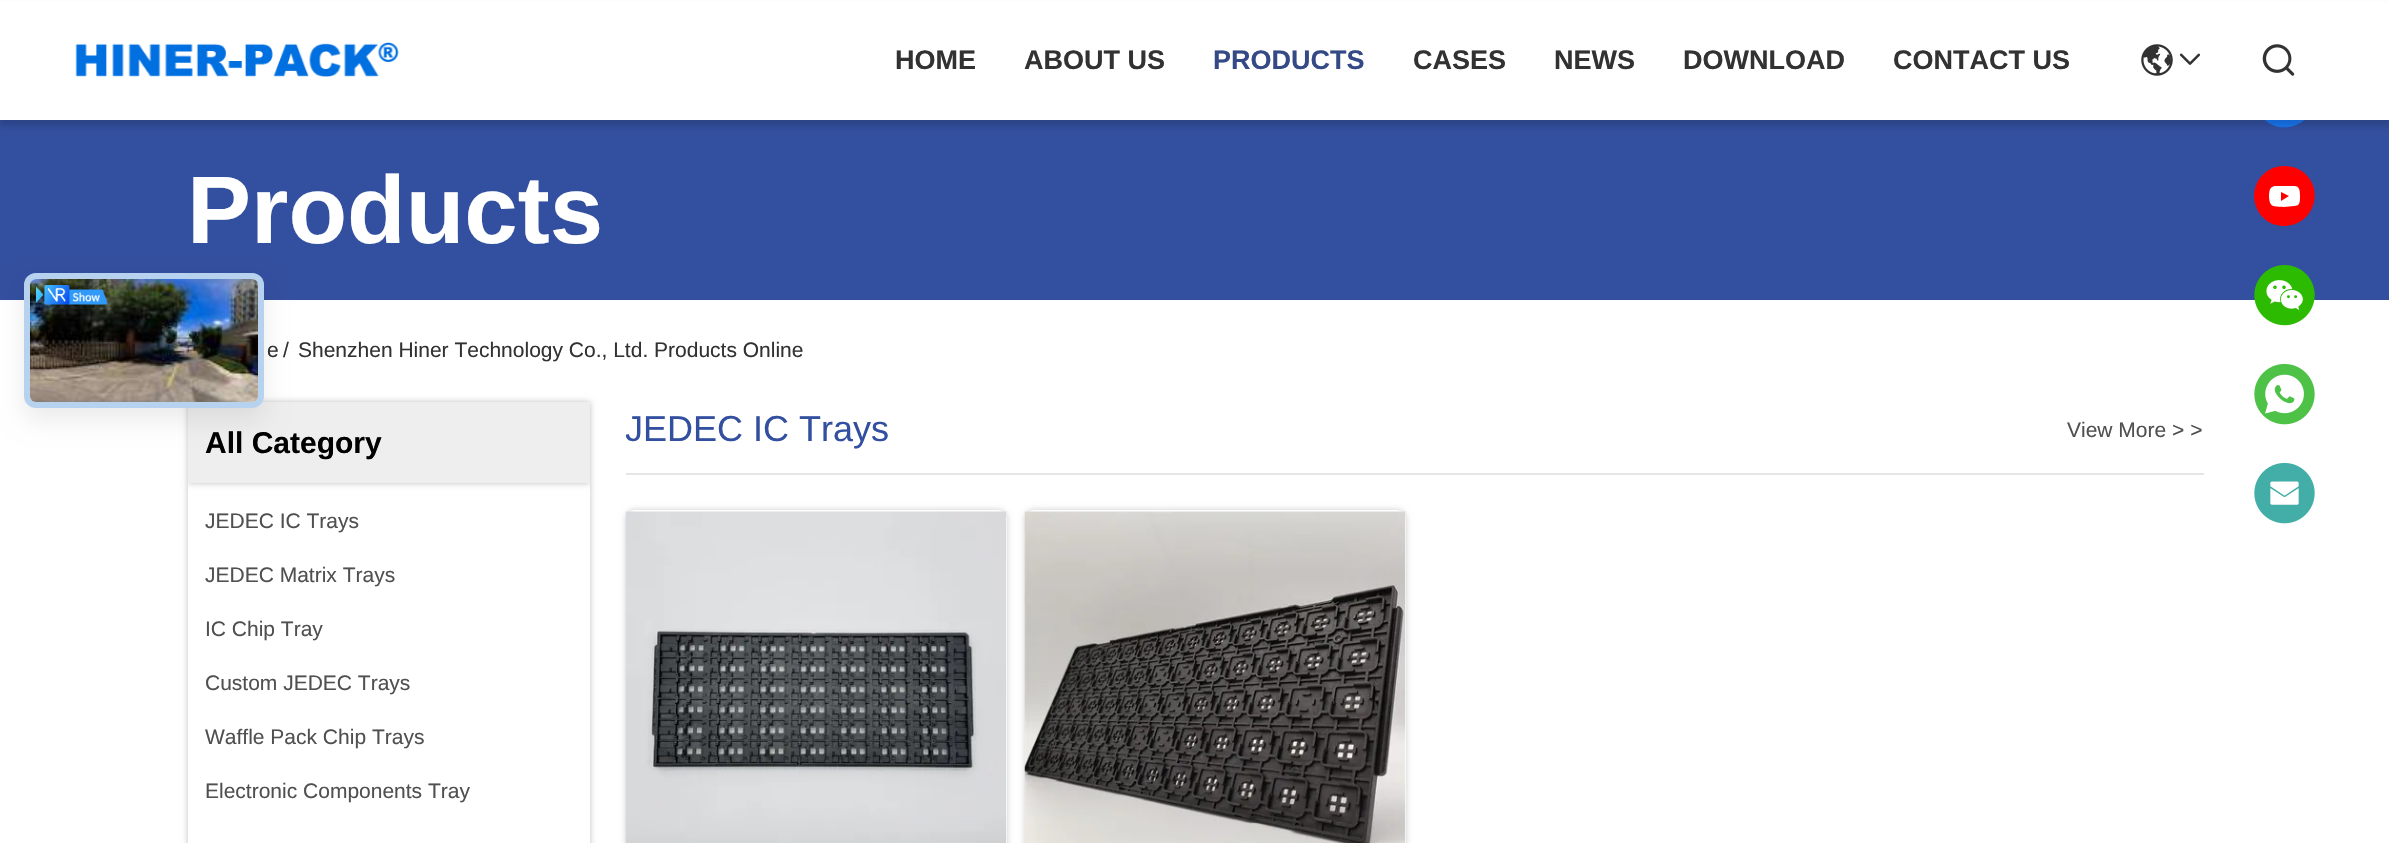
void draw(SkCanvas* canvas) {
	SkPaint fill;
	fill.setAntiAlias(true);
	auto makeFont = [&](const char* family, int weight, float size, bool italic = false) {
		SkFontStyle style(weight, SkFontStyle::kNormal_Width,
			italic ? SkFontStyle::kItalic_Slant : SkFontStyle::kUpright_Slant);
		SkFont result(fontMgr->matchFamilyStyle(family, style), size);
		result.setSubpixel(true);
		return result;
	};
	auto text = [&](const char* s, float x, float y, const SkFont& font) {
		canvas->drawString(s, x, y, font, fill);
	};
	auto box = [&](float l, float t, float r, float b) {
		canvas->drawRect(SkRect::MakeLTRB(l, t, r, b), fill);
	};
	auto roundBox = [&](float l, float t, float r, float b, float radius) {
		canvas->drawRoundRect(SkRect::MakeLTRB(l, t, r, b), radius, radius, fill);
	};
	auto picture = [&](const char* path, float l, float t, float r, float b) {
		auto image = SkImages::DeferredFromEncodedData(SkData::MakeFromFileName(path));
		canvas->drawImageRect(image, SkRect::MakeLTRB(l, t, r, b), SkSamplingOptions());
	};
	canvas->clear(0xFFFFFFFF);
	fill.setColor(0xFF334F9F);
	box(0, 120, 2389, 300);
	fill.setColor(0xFF1877F2);
	canvas->drawPath(SkPathBuilder().moveTo(2254, 97).cubicTo(2254, 90, 2257, 84, 2261, 79).cubicTo(2278, 56, 2315, 69, 2315, 97).cubicTo(2315, 126, 2278, 138, 2261, 116).cubicTo(2257, 110, 2254, 104, 2254, 97).close().moveTo(2292, 98).lineTo(2293, 91).lineTo(2287, 91).cubicTo(2287, 85, 2286, 85, 2293, 85).lineTo(2293, 79).cubicTo(2281, 79, 2279, 79, 2279, 91).lineTo(2275, 91).lineTo(2275, 98).lineTo(2279, 98).lineTo(2279, 118).lineTo(2287, 118).lineTo(2287, 98).close().detach(), fill);
	fill.setColor(0x26000000);
	fill.setMaskFilter(SkMaskFilter::MakeBlur(kNormal_SkBlurStyle, 3));
	canvas->drawRect(SkRect::MakeLTRB(0, 6, 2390, 126), fill);
	fill.setMaskFilter(nullptr);
	fill.setColor(0xFFFFFFFF);
	box(0, 2, 2389, 120);
	picture("image0.png", 75, 42, 399, 77);
	picture("image1.png", 2141, 44, 2173, 76);
	picture("image2.png", 2179, 53, 2200, 65);
	picture("image3.png", 2262, 44, 2295, 76);
	fill.setColor(0x40000000);
	fill.setMaskFilter(SkMaskFilter::MakeBlur(kNormal_SkBlurStyle, 3));
	canvas->drawRect(SkRect::MakeLTRB(188, 483, 590, 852), fill);
	fill.setMaskFilter(nullptr);
	fill.setColor(0xFFFFFFFF);
	box(188, 483, 590, 843);
	fill.setColor(0x40000000);
	fill.setMaskFilter(SkMaskFilter::MakeBlur(kNormal_SkBlurStyle, 3));
	canvas->drawRect(SkRect::MakeLTRB(188, 402, 590, 483), fill);
	fill.setMaskFilter(nullptr);
	fill.setColor(0xFFEEEEEE);
	box(188, 402, 590, 483);
	fill.setColor(0x14000000);
	fill.setMaskFilter(SkMaskFilter::MakeBlur(kNormal_SkBlurStyle, 12));
	canvas->drawRoundRect(SkRect::MakeLTRB(24, 285, 264, 420), 12, 12, fill);
	fill.setMaskFilter(nullptr);
	fill.setColor(0xFFEEEEEE);
	roundBox(24, 273, 264, 408, 12);
	fill.setStyle(SkPaint::kStroke_Style);
	fill.setStrokeWidth(6);
	fill.setColor(0x3D0478ED);
	canvas->drawRoundRect(SkRect::MakeLTRB(27, 276, 261, 405), 9, 9, fill);
	picture("image4.png", 30, 279, 258, 402);
	picture("image5.png", 36, 285, 108, 305);
	fill.setStyle(SkPaint::kFill_Style);
	fill.setColor(0xFFE5E5E5);
	box(626, 473, 2204, 475);
	fill.setColor(0x33000000);
	fill.setMaskFilter(SkMaskFilter::MakeBlur(kNormal_SkBlurStyle, 3));
	canvas->drawRoundRect(SkRect::MakeLTRB(626, 510, 1007, 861), 9, 9, fill);
	fill.setMaskFilter(nullptr);
	fill.setColor(0xFFFFFFFF);
	roundBox(626, 510, 1007, 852, 9);
	picture("image6.png", 625, 511, 1007, 843);
	fill.setColor(0x33000000);
	fill.setMaskFilter(SkMaskFilter::MakeBlur(kNormal_SkBlurStyle, 3));
	canvas->drawRoundRect(SkRect::MakeLTRB(1025, 510, 1406, 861), 9, 9, fill);
	fill.setMaskFilter(nullptr);
	fill.setColor(0xFFFFFFFF);
	roundBox(1025, 510, 1406, 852, 9);
	picture("image7.png", 1024, 511, 1406, 843);
	canvas->drawCircle(2283.5f, 199.5f, 22.5f, fill);
	fill.setColor(0xFFFF0000);
	canvas->drawPath(SkPathBuilder().moveTo(2284, 166).cubicTo(2291, 166, 2298, 168, 2303, 172).cubicTo(2326, 190, 2313, 226, 2284, 226).cubicTo(2256, 226, 2243, 190, 2266, 172).cubicTo(2271, 168, 2278, 166, 2284, 166).close().moveTo(2285, 186).cubicTo(2273, 186, 2269, 184, 2269, 197).cubicTo(2270, 208, 2273, 206, 2284, 207).lineTo(2294, 206).cubicTo(2300, 206, 2300, 202, 2300, 196).cubicTo(2300, 184, 2297, 186, 2285, 186).close().moveTo(2281, 192).lineTo(2289, 196).lineTo(2281, 201).close().detach(), fill);
	fill.setColor(0xFFFFFFFF);
	canvas->drawCircle(2283.5f, 298.5f, 22.5f, fill);
	picture("image8.png", 2254, 265, 2315, 326);
	picture("image9.png", 2254, 363, 2315, 425);
	picture("image10.png", 2254, 462, 2315, 524);
	auto font1 = makeFont("Liberation Sans", 700, 27);
	fill.setColor(0xFF323232);
	text("HOME", 895, 69, font1);
	text("ABOUT US", 1024, 69, font1);
	fill.setColor(0xFF344985);
	text("PRODUCTS", 1213, 69, font1);
	fill.setColor(0xFF323232);
	text("CASES", 1413, 69, font1);
	text("NEWS", 1554, 69, font1);
	text("DOWNLOAD", 1683, 69, font1);
	text("CONTACT US", 1893, 69, font1);
	auto font2 = makeFont("Liberation Sans", 700, 96);
	fill.setColor(0xFFFFFFFF);
	text("Products", 187, 243, font2);
	auto font3 = makeFont("Liberation Sans", 400, 21);
	fill.setColor(0xFF323232);
	text("e", 267, 357, font3);
	text("/", 283, 357, font3);
	text("Shenzhen Hiner Technology Co., Ltd. Products Online", 298, 357, font3);
	auto font4 = makeFont("Liberation Sans", 700, 30);
	fill.setColor(0xFF000000);
	text("All Category", 205, 453, font4);
	fill.setColor(0xFF505050);
	text("JEDEC IC Trays", 205, 528, font3);
	text("JEDEC Matrix Trays", 205, 582, font3);
	text("IC Chip Tray", 205, 636, font3);
	text("Custom JEDEC Trays", 205, 690, font3);
	text("Waffle Pack Chip Trays", 205, 744, font3);
	text("Electronic Components Tray", 205, 798, font3);
	canvas->save();
	canvas->clipRect(SkRect::MakeLTRB(626, 402, 890, 456));
	auto font5 = makeFont("Liberation Sans", 400, 36);
	fill.setColor(0xFF334F9F);
	text("JEDEC IC Trays", 625, 441, font5);
	canvas->restore();
	fill.setColor(0xFF505050);
	text("View More > >", 2067, 437, font3);
}
